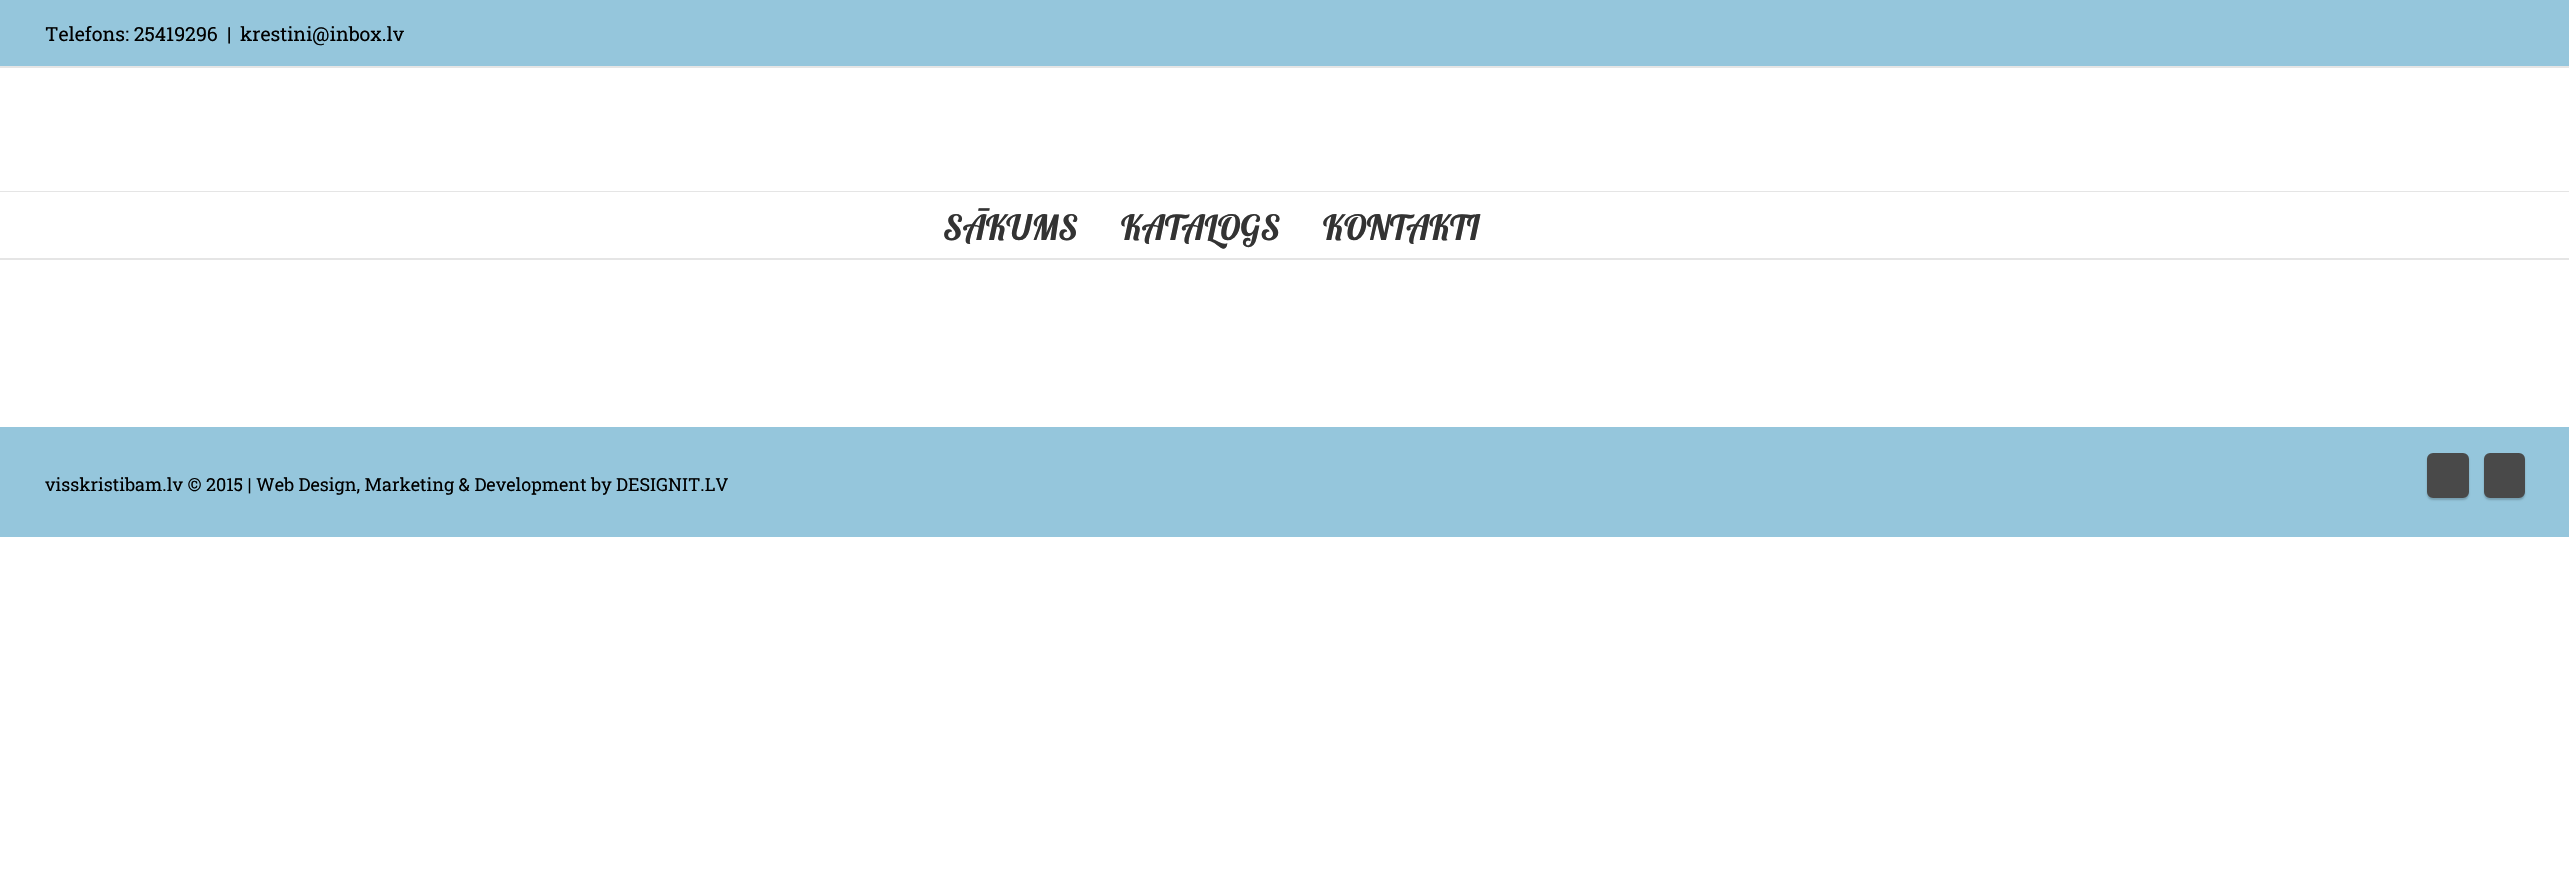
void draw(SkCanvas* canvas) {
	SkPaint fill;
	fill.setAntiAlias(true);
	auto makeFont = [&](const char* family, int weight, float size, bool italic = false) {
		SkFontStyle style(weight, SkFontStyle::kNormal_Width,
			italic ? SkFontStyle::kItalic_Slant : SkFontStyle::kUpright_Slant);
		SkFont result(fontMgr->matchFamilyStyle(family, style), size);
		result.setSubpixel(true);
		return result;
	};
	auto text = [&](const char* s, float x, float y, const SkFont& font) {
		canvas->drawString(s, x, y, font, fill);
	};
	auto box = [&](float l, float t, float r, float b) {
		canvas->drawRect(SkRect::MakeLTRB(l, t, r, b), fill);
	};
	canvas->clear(0xFFFFFFFF);
	fill.setColor(0xFF95C6DC);
	box(0, 0, 2569, 66);
	fill.setColor(0xFFE5E5E5);
	box(0, 66, 2569, 68);
	box(0, 191, 2569, 192);
	box(0, 258, 2569, 260);
	fill.setColor(0xFF95C6DC);
	box(0, 427, 2569, 537);
	fill.setColor(0x33000000);
	fill.setMaskFilter(SkMaskFilter::MakeBlur(kNormal_SkBlurStyle, 1));
	canvas->drawRoundRect(SkRect::MakeLTRB(2427, 455, 2469, 500), 6, 6, fill);
	fill.setMaskFilter(nullptr);
	fill.setColor(0xFF494949);
	canvas->drawRoundRect(SkRect::MakeLTRB(2428, 454, 2468, 497), 5, 5, fill);
	fill.setStyle(SkPaint::kStroke_Style);
	fill.setStrokeWidth(2);
	canvas->drawRoundRect(SkRect::MakeLTRB(2428, 454, 2468, 497), 5, 5, fill);
	fill.setStyle(SkPaint::kFill_Style);
	fill.setColor(0x33000000);
	fill.setMaskFilter(SkMaskFilter::MakeBlur(kNormal_SkBlurStyle, 1));
	canvas->drawRoundRect(SkRect::MakeLTRB(2484, 455, 2525, 500), 6, 6, fill);
	fill.setMaskFilter(nullptr);
	fill.setColor(0xFF494949);
	canvas->drawRoundRect(SkRect::MakeLTRB(2485, 454, 2524, 497), 5, 5, fill);
	fill.setStyle(SkPaint::kStroke_Style);
	canvas->drawRoundRect(SkRect::MakeLTRB(2485, 454, 2524, 497), 5, 5, fill);
	auto font1 = makeFont("Roboto Slab", 400, 19.5f);
	fill.setStyle(SkPaint::kFill_Style);
	fill.setColor(0xFF000000);
	text("Telefons: 25419296", 45, 41, font1);
	text("|", 227, 41, font1);
	text("krestini@inbox.lv", 240, 41, font1);
	auto font2 = makeFont("Lobster", 400, 34.5f);
	fill.setColor(0xFF333333);
	text("SĀKUMS", 943, 240, font2);
	text("KATALOGS", 1121, 240, font2);
	text("KONTAKTI", 1323, 240, font2);
	auto font3 = makeFont("Roboto Slab", 400, 18);
	fill.setColor(0xFF000000);
	text("visskristibam.lv © 2015 | Web Design, Marketing & Development by DESIGNIT.LV", 45, 491, font3);
}
